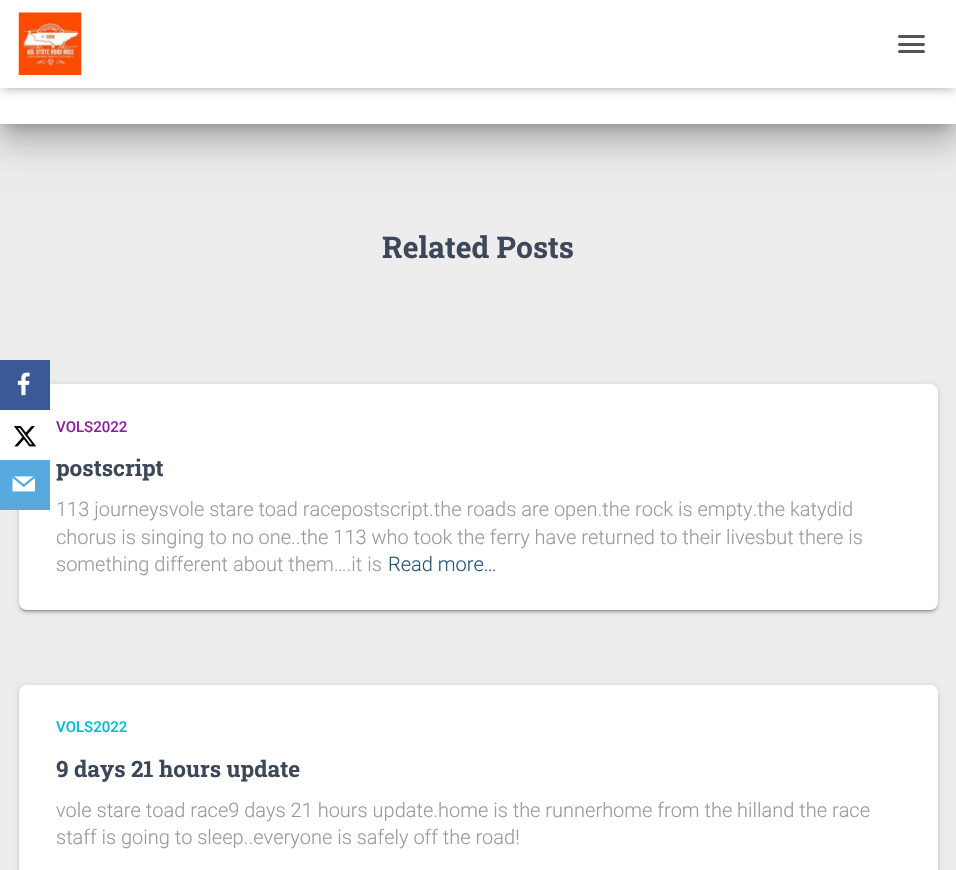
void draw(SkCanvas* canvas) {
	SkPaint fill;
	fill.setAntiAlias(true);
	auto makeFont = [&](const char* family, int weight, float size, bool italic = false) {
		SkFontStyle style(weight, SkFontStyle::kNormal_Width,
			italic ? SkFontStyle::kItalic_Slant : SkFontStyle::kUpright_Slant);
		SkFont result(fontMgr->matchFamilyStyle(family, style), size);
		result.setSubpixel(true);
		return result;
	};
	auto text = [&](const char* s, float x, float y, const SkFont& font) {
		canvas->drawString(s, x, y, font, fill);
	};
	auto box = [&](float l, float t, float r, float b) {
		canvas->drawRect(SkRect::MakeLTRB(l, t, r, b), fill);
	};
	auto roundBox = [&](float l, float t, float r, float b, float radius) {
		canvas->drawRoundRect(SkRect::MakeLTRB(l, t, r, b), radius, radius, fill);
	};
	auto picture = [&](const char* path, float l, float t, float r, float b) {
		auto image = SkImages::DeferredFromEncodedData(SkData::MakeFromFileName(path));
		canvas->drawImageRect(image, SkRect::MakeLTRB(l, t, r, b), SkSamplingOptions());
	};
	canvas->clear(0xFFEDEDED);
	fill.setColor(0x1F000000);
	fill.setMaskFilter(SkMaskFilter::MakeBlur(kNormal_SkBlurStyle, 3));
	canvas->drawRoundRect(SkRect::MakeLTRB(19, 385, 938, 611), 8, 8, fill);
	fill.setMaskFilter(nullptr);
	fill.setColor(0x33000000);
	fill.setMaskFilter(SkMaskFilter::MakeBlur(kNormal_SkBlurStyle, 0.5f));
	canvas->drawRoundRect(SkRect::MakeLTRB(21, 390, 935, 611), 5, 5, fill);
	fill.setMaskFilter(nullptr);
	fill.setColor(0x24000000);
	fill.setMaskFilter(SkMaskFilter::MakeBlur(kNormal_SkBlurStyle, 1));
	canvas->drawRoundRect(SkRect::MakeLTRB(19, 386, 938, 613), 8, 8, fill);
	fill.setMaskFilter(nullptr);
	fill.setColor(0xFFFFFFFF);
	roundBox(19, 384, 938, 610, 8);
	fill.setColor(0xFF3B5998);
	box(0, 360, 50, 410);
	picture("image0.png", 17, 372, 30, 396);
	fill.setColor(0xFFFFFFFF);
	box(0, 410, 19, 460);
	picture("image1.png", 13, 426, 37, 447);
	fill.setColor(0xFF58A9DE);
	box(0, 460, 50, 510);
	picture("image2.png", 12, 476, 35, 492);
	fill.setColor(0x33000000);
	fill.setMaskFilter(SkMaskFilter::MakeBlur(kNormal_SkBlurStyle, 6));
	canvas->drawRect(SkRect::MakeLTRB(6, -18, 950, 128), fill);
	fill.setMaskFilter(nullptr);
	fill.setColor(0x1F000000);
	fill.setMaskFilter(SkMaskFilter::MakeBlur(kNormal_SkBlurStyle, 19));
	canvas->drawRect(SkRect::MakeLTRB(-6, -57, 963, 138), fill);
	fill.setMaskFilter(nullptr);
	fill.setColor(0x24000000);
	fill.setMaskFilter(SkMaskFilter::MakeBlur(kNormal_SkBlurStyle, 15));
	canvas->drawRect(SkRect::MakeLTRB(-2, -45, 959, 146), fill);
	fill.setMaskFilter(nullptr);
	fill.setColor(0xFFFFFFFF);
	box(0, 88, 956, 124);
	fill.setColor(0x1A000000);
	fill.setMaskFilter(SkMaskFilter::MakeBlur(kNormal_SkBlurStyle, 3));
	canvas->drawRect(SkRect::MakeLTRB(3, 8, 954, 90), fill);
	fill.setMaskFilter(nullptr);
	fill.setColor(0x1F000000);
	fill.setMaskFilter(SkMaskFilter::MakeBlur(kNormal_SkBlurStyle, 6));
	canvas->drawRect(SkRect::MakeLTRB(0, 1, 956, 89), fill);
	fill.setMaskFilter(nullptr);
	fill.setColor(0x6B000000);
	fill.setMaskFilter(SkMaskFilter::MakeBlur(kNormal_SkBlurStyle, 6));
	canvas->drawRect(SkRect::MakeLTRB(8, 9, 949, 81), fill);
	fill.setMaskFilter(nullptr);
	fill.setColor(0xFFFFFFFF);
	box(0, 0, 956, 88);
	picture("image3.png", 18, 12, 82, 75);
	fill.setColor(0xFF555555);
	roundBox(898, 35, 925, 38, 1.5f);
	roundBox(898, 43, 925, 46, 1.5f);
	roundBox(898, 50, 925, 53, 1.5f);
	fill.setColor(0x1F000000);
	fill.setMaskFilter(SkMaskFilter::MakeBlur(kNormal_SkBlurStyle, 3));
	canvas->drawRoundRect(SkRect::MakeLTRB(19, 686, 938, 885), 8, 8, fill);
	fill.setMaskFilter(nullptr);
	fill.setColor(0x24000000);
	fill.setMaskFilter(SkMaskFilter::MakeBlur(kNormal_SkBlurStyle, 1));
	canvas->drawRoundRect(SkRect::MakeLTRB(19, 688, 938, 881), 8, 8, fill);
	fill.setMaskFilter(nullptr);
	fill.setColor(0xFFFFFFFF);
	roundBox(19, 685, 938, 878, 8);
	auto font1 = makeFont("Roboto Slab", 700, 30);
	fill.setColor(0xFF3C4858);
	text("Related Posts", 382, 258, font1);
	auto font2 = makeFont("Roboto", 500, 15);
	fill.setColor(0xFF89229B);
	text("VOLS2022", 56, 432, font2);
	auto font3 = makeFont("Roboto Slab", 700, 22.5f);
	fill.setColor(0xFF3C4858);
	text("postscript", 56, 476, font3);
	auto font4 = makeFont("Roboto", 300, 20);
	fill.setColor(0xFF999999);
	text("113 journeysvole stare toad racepostscript.the roads are open.the rock is empty.the katydid", 56, 516, font4);
	text("chorus is singing to no one..the 113 who took the ferry have returned to their livesbut there is", 56, 544, font4);
	text("something different about them….it is", 56, 571, font4);
	fill.setColor(0xFF23527C);
	text("Read more…", 388, 571, font4);
	fill.setColor(0xFF00BCD4);
	text("VOLS2022", 56, 732, font2);
	fill.setColor(0xFF3C4858);
	text("9 days 21 hours update", 56, 777, font3);
	fill.setColor(0xFF999999);
	text("vole stare toad race9 days 21 hours update.home is the runnerhome from the hilland the race", 56, 817, font4);
	text("staff is going to sleep..everyone is safely off the road!", 56, 844, font4);
}
